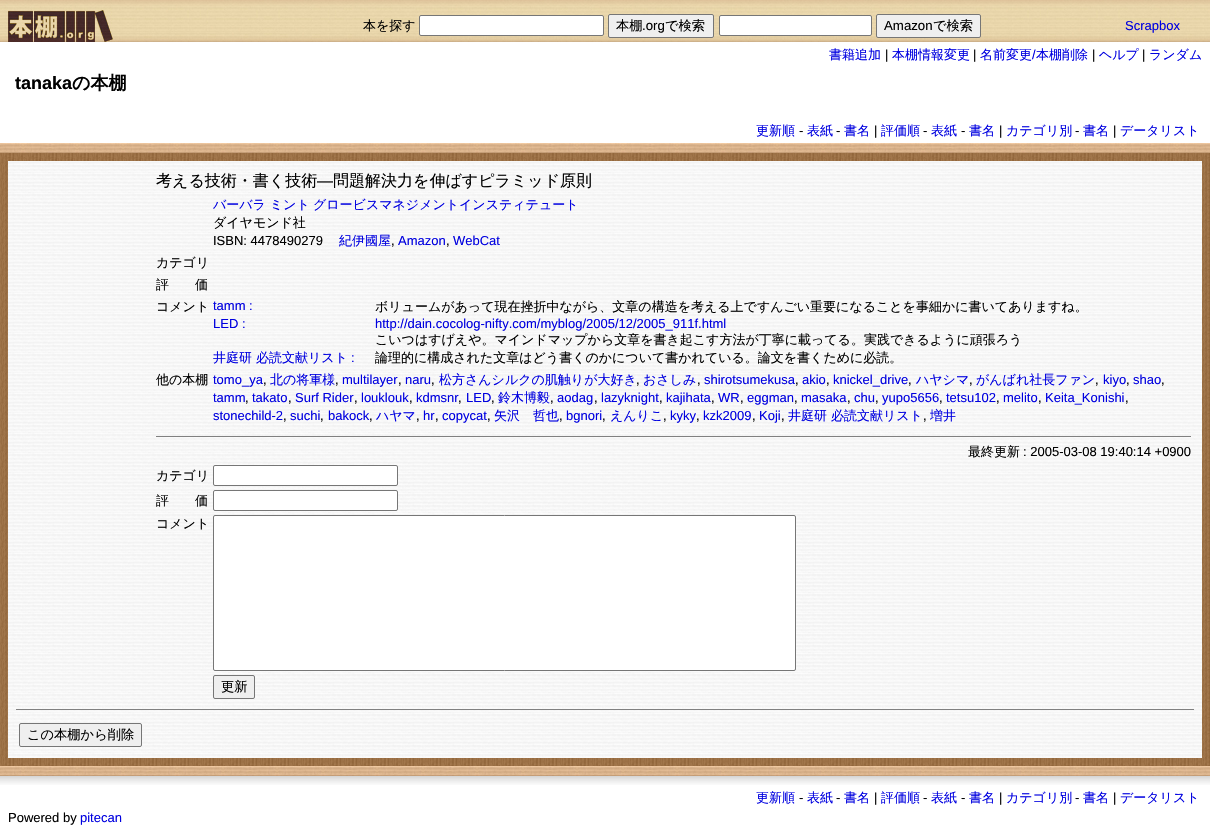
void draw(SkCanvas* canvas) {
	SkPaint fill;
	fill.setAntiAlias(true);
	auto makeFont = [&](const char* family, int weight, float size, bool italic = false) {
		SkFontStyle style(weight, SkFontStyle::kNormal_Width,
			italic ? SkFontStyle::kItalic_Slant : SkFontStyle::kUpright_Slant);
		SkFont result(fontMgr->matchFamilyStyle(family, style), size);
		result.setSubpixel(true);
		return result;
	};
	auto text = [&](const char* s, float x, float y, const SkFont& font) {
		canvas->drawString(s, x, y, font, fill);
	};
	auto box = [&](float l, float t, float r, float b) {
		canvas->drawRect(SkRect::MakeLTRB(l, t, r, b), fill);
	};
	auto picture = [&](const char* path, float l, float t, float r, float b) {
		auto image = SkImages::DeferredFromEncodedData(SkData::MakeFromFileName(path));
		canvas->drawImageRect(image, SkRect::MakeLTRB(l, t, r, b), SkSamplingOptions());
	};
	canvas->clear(0xFFFFFFFF);
	picture("image0.png", 0, 0, 1210, 42);
	fill.setColor(0xFFFFFFFF);
	canvas->drawRoundRect(SkRect::MakeLTRB(419.5f, 15.5f, 603.5f, 35.5f), 1.5f, 1.5f, fill);
	fill.setStyle(SkPaint::kStroke_Style);
	fill.setStrokeWidth(1);
	fill.setColor(0xFF767676);
	canvas->drawRoundRect(SkRect::MakeLTRB(419.5f, 15.5f, 603.5f, 35.5f), 1.5f, 1.5f, fill);
	fill.setStyle(SkPaint::kFill_Style);
	fill.setColor(0xFFEFEFEF);
	canvas->drawRoundRect(SkRect::MakeLTRB(608.5f, 14.5f, 713.5f, 37.5f), 1.5f, 1.5f, fill);
	fill.setStyle(SkPaint::kStroke_Style);
	fill.setColor(0xFF767676);
	canvas->drawRoundRect(SkRect::MakeLTRB(608.5f, 14.5f, 713.5f, 37.5f), 1.5f, 1.5f, fill);
	fill.setStyle(SkPaint::kFill_Style);
	fill.setColor(0xFFFFFFFF);
	canvas->drawRoundRect(SkRect::MakeLTRB(719.5f, 15.5f, 871.5f, 35.5f), 1.5f, 1.5f, fill);
	fill.setStyle(SkPaint::kStroke_Style);
	fill.setColor(0xFF767676);
	canvas->drawRoundRect(SkRect::MakeLTRB(719.5f, 15.5f, 871.5f, 35.5f), 1.5f, 1.5f, fill);
	fill.setStyle(SkPaint::kFill_Style);
	fill.setColor(0xFFEFEFEF);
	canvas->drawRoundRect(SkRect::MakeLTRB(876.5f, 14.5f, 980.5f, 37.5f), 1.5f, 1.5f, fill);
	fill.setStyle(SkPaint::kStroke_Style);
	fill.setColor(0xFF767676);
	canvas->drawRoundRect(SkRect::MakeLTRB(876.5f, 14.5f, 980.5f, 37.5f), 1.5f, 1.5f, fill);
	picture("image1.png", 0, 153, 1210, 766);
	picture("image2.png", 0, 143, 1210, 153);
	picture("image3.png", 8, 161, 1202, 758);
	fill.setStyle(SkPaint::kFill_Style);
	fill.setColor(0xFF808080);
	box(156, 436, 1191, 437);
	fill.setColor(0xFFFFFFFF);
	canvas->drawRoundRect(SkRect::MakeLTRB(213.5f, 465.5f, 397.5f, 485.5f), 1.5f, 1.5f, fill);
	fill.setStyle(SkPaint::kStroke_Style);
	fill.setColor(0xFF767676);
	canvas->drawRoundRect(SkRect::MakeLTRB(213.5f, 465.5f, 397.5f, 485.5f), 1.5f, 1.5f, fill);
	fill.setStyle(SkPaint::kFill_Style);
	fill.setColor(0xFFFFFFFF);
	canvas->drawRoundRect(SkRect::MakeLTRB(213.5f, 490.5f, 397.5f, 510.5f), 1.5f, 1.5f, fill);
	fill.setStyle(SkPaint::kStroke_Style);
	fill.setColor(0xFF767676);
	canvas->drawRoundRect(SkRect::MakeLTRB(213.5f, 490.5f, 397.5f, 510.5f), 1.5f, 1.5f, fill);
	fill.setStyle(SkPaint::kFill_Style);
	fill.setColor(0xFFFFFFFF);
	canvas->drawRoundRect(SkRect::MakeLTRB(213.5f, 515.5f, 795.5f, 670.5f), 1.5f, 1.5f, fill);
	fill.setStyle(SkPaint::kStroke_Style);
	fill.setColor(0xFF767676);
	canvas->drawRoundRect(SkRect::MakeLTRB(213.5f, 515.5f, 795.5f, 670.5f), 1.5f, 1.5f, fill);
	fill.setStyle(SkPaint::kFill_Style);
	fill.setColor(0xFFEFEFEF);
	canvas->drawRoundRect(SkRect::MakeLTRB(213.5f, 675.5f, 254.5f, 698.5f), 1.5f, 1.5f, fill);
	fill.setStyle(SkPaint::kStroke_Style);
	fill.setColor(0xFF767676);
	canvas->drawRoundRect(SkRect::MakeLTRB(213.5f, 675.5f, 254.5f, 698.5f), 1.5f, 1.5f, fill);
	fill.setStyle(SkPaint::kFill_Style);
	fill.setColor(0xFF808080);
	box(16, 709, 1194, 710);
	fill.setColor(0xFFEFEFEF);
	canvas->drawRoundRect(SkRect::MakeLTRB(19.5f, 723.5f, 141.5f, 746.5f), 1.5f, 1.5f, fill);
	fill.setStyle(SkPaint::kStroke_Style);
	fill.setColor(0xFF767676);
	canvas->drawRoundRect(SkRect::MakeLTRB(19.5f, 723.5f, 141.5f, 746.5f), 1.5f, 1.5f, fill);
	picture("image2.png", 0, 766, 1210, 776);
	picture("image4.png", 0, 776, 1210, 785);
	auto font1 = makeFont("WenQuanYi Zen Hei", 500, 13);
	fill.setStyle(SkPaint::kFill_Style);
	fill.setColor(0xFF000000);
	text("本を探す", 363, 30, font1);
	auto font2 = makeFont("WenQuanYi Zen Hei", 500, 13.25f);
	text("本棚", 616, 30, font2);
	auto font3 = makeFont("Liberation Sans", 400, 13.25f);
	text(".org", 642, 30, font3);
	text("で検索", 665, 30, font2);
	text("Amazon", 884, 30, font3);
	text("で検索", 933, 30, font2);
	auto font4 = makeFont("Liberation Sans", 400, 13);
	fill.setColor(0xFF0000E0);
	text("Scrapbox", 1125, 30, font4);
	text("書籍追加", 829, 59, font1);
	fill.setColor(0xFF000000);
	text("|", 885, 59, font4);
	fill.setColor(0xFF0000E0);
	text("本棚情報変更", 892, 59, font1);
	fill.setColor(0xFF000000);
	text("|", 973, 59, font4);
	fill.setColor(0xFF0000E0);
	text("名前変更", 980, 59, font1);
	text("/", 1032, 59, font4);
	text("本棚削除", 1036, 59, font1);
	fill.setColor(0xFF000000);
	text("|", 1092, 59, font4);
	fill.setColor(0xFF0000E0);
	text("ヘルプ", 1099, 59, font1);
	fill.setColor(0xFF000000);
	text("|", 1142, 59, font4);
	fill.setColor(0xFF0000E0);
	text("ランダム", 1149, 59, font1);
	auto font5 = makeFont("Liberation Sans", 700, 18);
	fill.setColor(0xFF000000);
	text("tanaka", 15, 89, font5);
	auto font6 = makeFont("WenQuanYi Zen Hei", 700, 18);
	text("の本棚", 72, 89, font6);
	fill.setColor(0xFF0000E0);
	text("更新順", 756, 135, font1);
	fill.setColor(0xFF000000);
	text("-", 799, 135, font4);
	fill.setColor(0xFF0000E0);
	text("表紙", 807, 135, font1);
	fill.setColor(0xFF000000);
	text("-", 836, 135, font4);
	fill.setColor(0xFF0000E0);
	text("書名", 844, 135, font1);
	fill.setColor(0xFF000000);
	text("|", 874, 135, font4);
	fill.setColor(0xFF0000E0);
	text("評価順", 881, 135, font1);
	fill.setColor(0xFF000000);
	text("-", 923, 135, font4);
	fill.setColor(0xFF0000E0);
	text("表紙", 931, 135, font1);
	fill.setColor(0xFF000000);
	text("-", 961, 135, font4);
	fill.setColor(0xFF0000E0);
	text("書名", 969, 135, font1);
	fill.setColor(0xFF000000);
	text("|", 999, 135, font4);
	fill.setColor(0xFF0000E0);
	text("カテゴリ別", 1006, 135, font1);
	fill.setColor(0xFF000000);
	text("-", 1075, 135, font4);
	fill.setColor(0xFF0000E0);
	text("書名", 1083, 135, font1);
	fill.setColor(0xFF000000);
	text("|", 1113, 135, font4);
	fill.setColor(0xFF0000E0);
	text("データリスト", 1120, 135, font1);
	auto font7 = makeFont("WenQuanYi Zen Hei", 500, 16);
	fill.setColor(0xFF000000);
	text("考える技術・書く技術", 156, 186, font7);
	auto font8 = makeFont("Liberation Sans", 400, 16);
	text("―", 317, 186, font8);
	text("問題解決力を伸ばすピラミッド原則", 333, 186, font7);
	fill.setColor(0xFF0000E0);
	text("バーバラ ミント", 213, 209, font1);
	text("グロービスマネジメントインスティテュート", 313, 209, font1);
	fill.setColor(0xFF000000);
	text("ダイヤモンド社", 213, 227, font1);
	text("ISBN: 4478490279", 213, 245, font4);
	fill.setColor(0xFF0000E0);
	text("紀伊國屋", 339, 245, font1);
	fill.setColor(0xFF000000);
	text(",", 391, 245, font4);
	fill.setColor(0xFF0000E0);
	text("Amazon", 398, 245, font4);
	fill.setColor(0xFF000000);
	text(",", 446, 245, font4);
	fill.setColor(0xFF0000E0);
	text("WebCat", 453, 245, font4);
	fill.setColor(0xFF000000);
	text("カテゴリ", 156, 267, font1);
	text("評　　価", 156, 289, font1);
	text("コメント", 156, 311, font1);
	fill.setColor(0xFF0000E0);
	text("tamm :", 213, 310, font4);
	fill.setColor(0xFF000000);
	text("ボリュームがあって現在挫折中ながら、文章の構造を考える上ですんごい重要になることを事細かに書いてありますね。", 375, 311, font1);
	fill.setColor(0xFF0000E0);
	text("LED :", 213, 328, font4);
	text("http://dain.cocolog-nifty.com/myblog/2005/12/2005_911f.html", 375, 328, font4);
	fill.setColor(0xFF000000);
	text("こいつはすげえや。マインドマップから文章を書き起こす方法が丁寧に載ってる。実践できるように頑張ろう", 375, 344, font1);
	fill.setColor(0xFF0000E0);
	text("井庭研 必読文献リスト", 213, 362, font1);
	text(":", 351, 362, font4);
	fill.setColor(0xFF000000);
	text("論理的に構成された文章はどう書くのかについて書かれている。論文を書くために必読。", 375, 362, font1);
	text("他の本棚", 156, 384, font1);
	fill.setColor(0xFF0000E0);
	text("tomo_ya", 213, 384, font4);
	fill.setColor(0xFF000000);
	text(",", 263, 384, font4);
	fill.setColor(0xFF0000E0);
	text("北の将軍様", 270, 384, font1);
	fill.setColor(0xFF000000);
	text(",", 335, 384, font4);
	fill.setColor(0xFF0000E0);
	text("multilayer", 342, 384, font4);
	fill.setColor(0xFF000000);
	text(",", 398, 384, font4);
	fill.setColor(0xFF0000E0);
	text("naru", 405, 384, font4);
	fill.setColor(0xFF000000);
	text(",", 431, 384, font4);
	fill.setColor(0xFF0000E0);
	text("松方さんシルクの肌触りが大好き", 439, 384, font1);
	fill.setColor(0xFF000000);
	text(",", 636, 384, font4);
	fill.setColor(0xFF0000E0);
	text("おさしみ", 643, 384, font1);
	fill.setColor(0xFF000000);
	text(",", 697, 384, font4);
	fill.setColor(0xFF0000E0);
	text("shirotsumekusa", 704, 384, font4);
	fill.setColor(0xFF000000);
	text(",", 795, 384, font4);
	fill.setColor(0xFF0000E0);
	text("akio", 802, 384, font4);
	fill.setColor(0xFF000000);
	text(",", 826, 384, font4);
	fill.setColor(0xFF0000E0);
	text("knickel_drive", 833, 384, font4);
	fill.setColor(0xFF000000);
	text(",", 908, 384, font4);
	fill.setColor(0xFF0000E0);
	text("ハヤシマ", 916, 384, font1);
	fill.setColor(0xFF000000);
	text(",", 969, 384, font4);
	fill.setColor(0xFF0000E0);
	text("がんばれ社長ファン", 976, 384, font1);
	fill.setColor(0xFF000000);
	text(",", 1095, 384, font4);
	fill.setColor(0xFF0000E0);
	text("kiyo", 1103, 384, font4);
	fill.setColor(0xFF000000);
	text(",", 1126, 384, font4);
	fill.setColor(0xFF0000E0);
	text("shao", 1133, 384, font4);
	fill.setColor(0xFF000000);
	text(",", 1161, 384, font4);
	fill.setColor(0xFF0000E0);
	text("tamm", 213, 402, font4);
	fill.setColor(0xFF000000);
	text(",", 245, 402, font4);
	fill.setColor(0xFF0000E0);
	text("takato", 252, 402, font4);
	fill.setColor(0xFF000000);
	text(",", 288, 402, font4);
	fill.setColor(0xFF0000E0);
	text("Surf Rider", 295, 402, font4);
	fill.setColor(0xFF000000);
	text(",", 354, 402, font4);
	fill.setColor(0xFF0000E0);
	text("louklouk", 361, 402, font4);
	fill.setColor(0xFF000000);
	text(",", 409, 402, font4);
	fill.setColor(0xFF0000E0);
	text("kdmsnr", 416, 402, font4);
	fill.setColor(0xFF000000);
	text(",", 458, 402, font4);
	fill.setColor(0xFF0000E0);
	text("LED", 466, 402, font4);
	fill.setColor(0xFF000000);
	text(",", 491, 402, font4);
	fill.setColor(0xFF0000E0);
	text("鈴木博毅", 498, 402, font1);
	fill.setColor(0xFF000000);
	text(",", 550, 402, font4);
	fill.setColor(0xFF0000E0);
	text("aodag", 557, 402, font4);
	fill.setColor(0xFF000000);
	text(",", 594, 402, font4);
	fill.setColor(0xFF0000E0);
	text("lazyknight", 601, 402, font4);
	fill.setColor(0xFF000000);
	text(",", 659, 402, font4);
	fill.setColor(0xFF0000E0);
	text("kajihata", 666, 402, font4);
	fill.setColor(0xFF000000);
	text(",", 711, 402, font4);
	fill.setColor(0xFF0000E0);
	text("WR", 718, 402, font4);
	fill.setColor(0xFF000000);
	text(",", 740, 402, font4);
	fill.setColor(0xFF0000E0);
	text("eggman", 747, 402, font4);
	fill.setColor(0xFF000000);
	text(",", 794, 402, font4);
	fill.setColor(0xFF0000E0);
	text("masaka", 801, 402, font4);
	fill.setColor(0xFF000000);
	text(",", 847, 402, font4);
	fill.setColor(0xFF0000E0);
	text("chu", 854, 402, font4);
	fill.setColor(0xFF000000);
	text(",", 875, 402, font4);
	fill.setColor(0xFF0000E0);
	text("yupo5656", 882, 402, font4);
	fill.setColor(0xFF000000);
	text(",", 939, 402, font4);
	fill.setColor(0xFF0000E0);
	text("tetsu102", 946, 402, font4);
	fill.setColor(0xFF000000);
	text(",", 996, 402, font4);
	fill.setColor(0xFF0000E0);
	text("melito", 1003, 402, font4);
	fill.setColor(0xFF000000);
	text(",", 1038, 402, font4);
	fill.setColor(0xFF0000E0);
	text("Keita_Konishi", 1045, 402, font4);
	fill.setColor(0xFF000000);
	text(",", 1125, 402, font4);
	fill.setColor(0xFF0000E0);
	text("stonechild-2", 213, 420, font4);
	fill.setColor(0xFF000000);
	text(",", 283, 420, font4);
	fill.setColor(0xFF0000E0);
	text("suchi", 290, 420, font4);
	fill.setColor(0xFF000000);
	text(",", 320, 420, font4);
	fill.setColor(0xFF0000E0);
	text("bakock", 328, 420, font4);
	fill.setColor(0xFF000000);
	text(",", 369, 420, font4);
	fill.setColor(0xFF0000E0);
	text("ハヤマ", 376, 420, font1);
	fill.setColor(0xFF000000);
	text(",", 416, 420, font4);
	fill.setColor(0xFF0000E0);
	text("hr", 423, 420, font4);
	fill.setColor(0xFF000000);
	text(",", 435, 420, font4);
	fill.setColor(0xFF0000E0);
	text("copycat", 442, 420, font4);
	fill.setColor(0xFF000000);
	text(",", 487, 420, font4);
	fill.setColor(0xFF0000E0);
	text("矢沢　哲也", 494, 420, font1);
	fill.setColor(0xFF000000);
	text(",", 559, 420, font4);
	fill.setColor(0xFF0000E0);
	text("bgnori", 566, 420, font4);
	fill.setColor(0xFF000000);
	text(",", 602, 420, font4);
	fill.setColor(0xFF0000E0);
	text("えんりこ", 610, 420, font1);
	fill.setColor(0xFF000000);
	text(",", 663, 420, font4);
	fill.setColor(0xFF0000E0);
	text("kyky", 670, 420, font4);
	fill.setColor(0xFF000000);
	text(",", 696, 420, font4);
	fill.setColor(0xFF0000E0);
	text("kzk2009", 703, 420, font4);
	fill.setColor(0xFF000000);
	text(",", 752, 420, font4);
	fill.setColor(0xFF0000E0);
	text("Koji", 759, 420, font4);
	fill.setColor(0xFF000000);
	text(",", 781, 420, font4);
	fill.setColor(0xFF0000E0);
	text("井庭研 必読文献リスト", 788, 420, font1);
	fill.setColor(0xFF000000);
	text(",", 923, 420, font4);
	fill.setColor(0xFF0000E0);
	text("増井", 930, 420, font1);
	fill.setColor(0xFF000000);
	text("最終更新", 968, 456, font1);
	text(": 2005-03-08 19:40:14 +0900", 1023, 456, font4);
	text("カテゴリ", 156, 480, font1);
	text("評　　価", 156, 505, font1);
	text("コメント", 156, 528, font1);
	text("更新", 221, 691, font2);
	text("この本棚から削除", 27, 739, font2);
	fill.setColor(0xFF0000E0);
	text("更新順", 756, 802, font1);
	fill.setColor(0xFF000000);
	text("-", 799, 802, font4);
	fill.setColor(0xFF0000E0);
	text("表紙", 807, 802, font1);
	fill.setColor(0xFF000000);
	text("-", 836, 802, font4);
	fill.setColor(0xFF0000E0);
	text("書名", 844, 802, font1);
	fill.setColor(0xFF000000);
	text("|", 874, 802, font4);
	fill.setColor(0xFF0000E0);
	text("評価順", 881, 802, font1);
	fill.setColor(0xFF000000);
	text("-", 923, 802, font4);
	fill.setColor(0xFF0000E0);
	text("表紙", 931, 802, font1);
	fill.setColor(0xFF000000);
	text("-", 961, 802, font4);
	fill.setColor(0xFF0000E0);
	text("書名", 969, 802, font1);
	fill.setColor(0xFF000000);
	text("|", 999, 802, font4);
	fill.setColor(0xFF0000E0);
	text("カテゴリ別", 1006, 802, font1);
	fill.setColor(0xFF000000);
	text("-", 1075, 802, font4);
	fill.setColor(0xFF0000E0);
	text("書名", 1083, 802, font1);
	fill.setColor(0xFF000000);
	text("|", 1113, 802, font4);
	fill.setColor(0xFF0000E0);
	text("データリスト", 1120, 802, font1);
	fill.setColor(0xFF000000);
	text("Powered by", 8, 822, font4);
	fill.setColor(0xFF0000E0);
	text("pitecan", 80, 822, font4);
}
